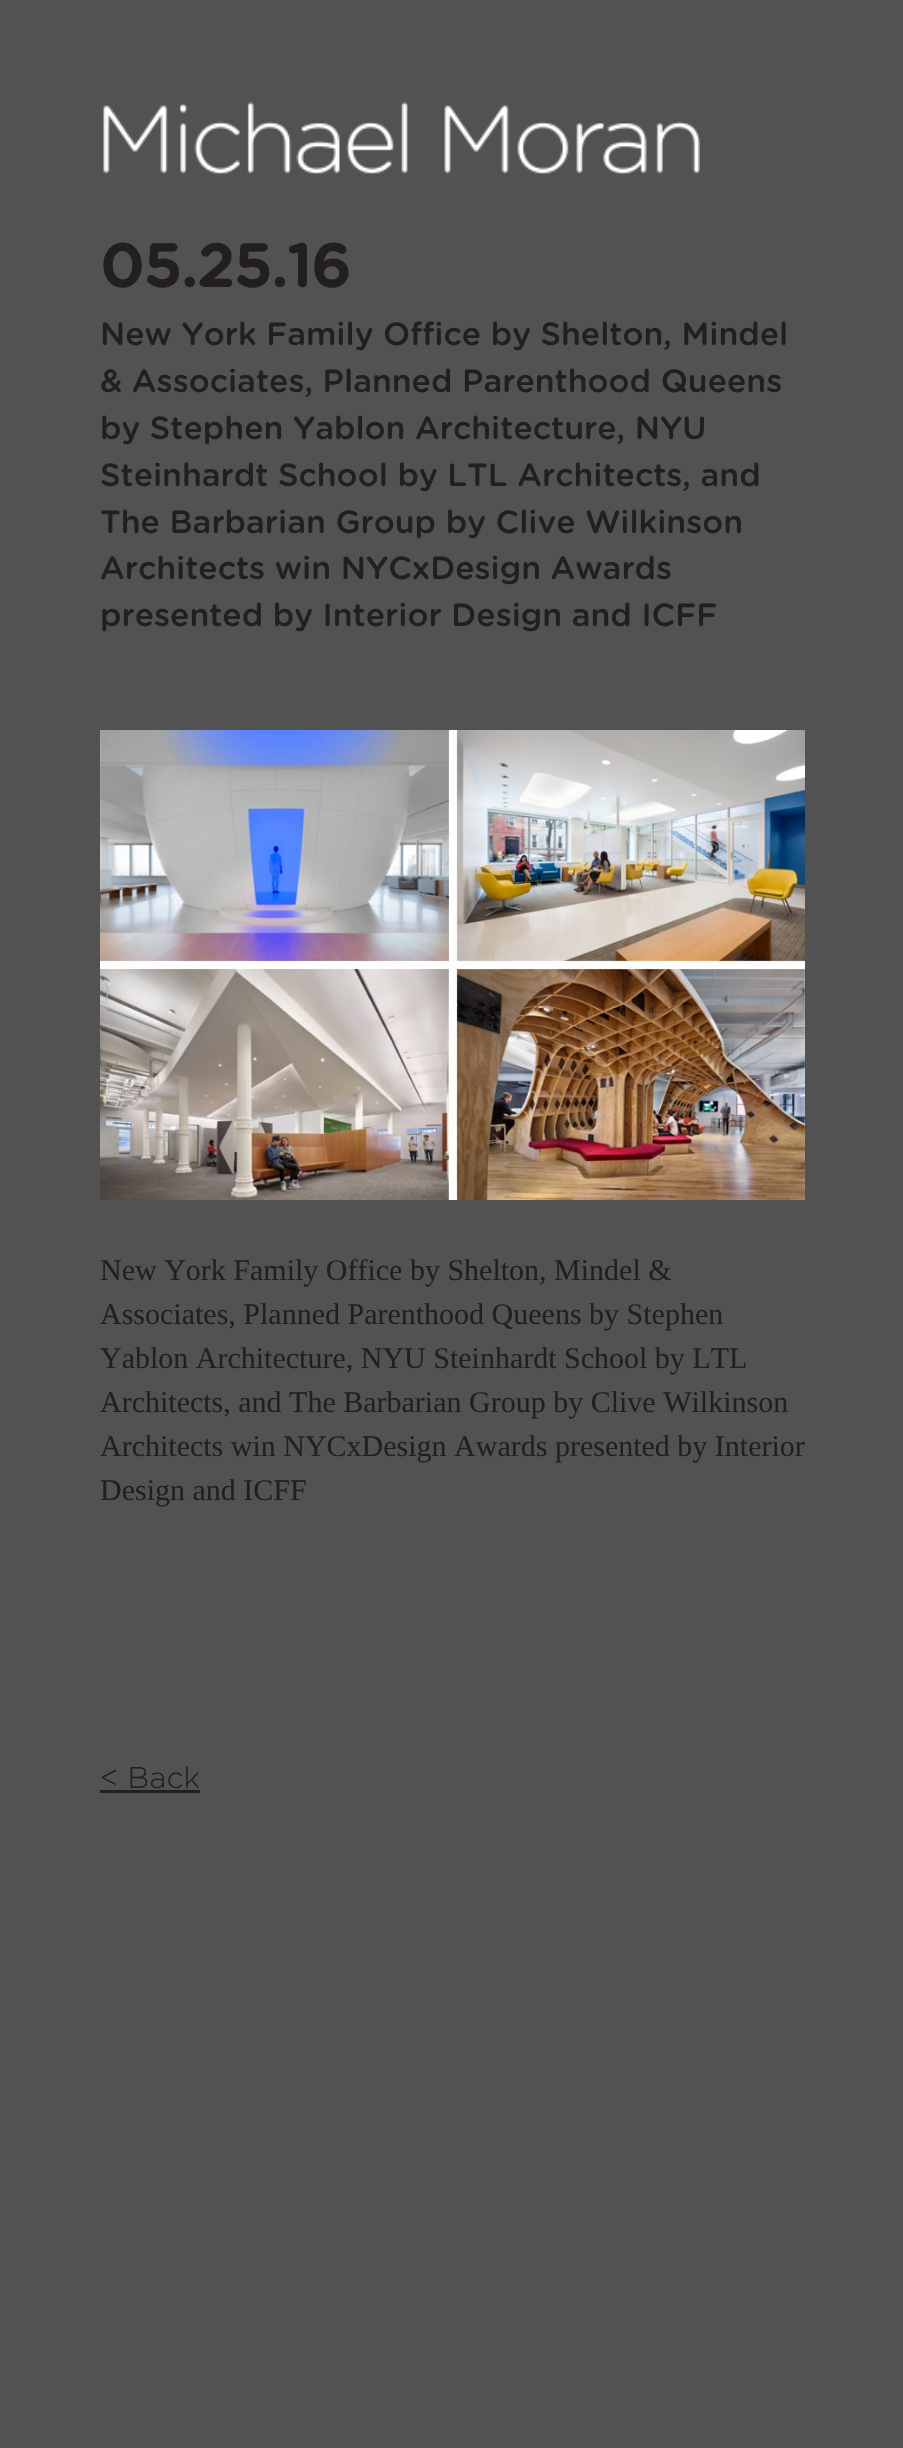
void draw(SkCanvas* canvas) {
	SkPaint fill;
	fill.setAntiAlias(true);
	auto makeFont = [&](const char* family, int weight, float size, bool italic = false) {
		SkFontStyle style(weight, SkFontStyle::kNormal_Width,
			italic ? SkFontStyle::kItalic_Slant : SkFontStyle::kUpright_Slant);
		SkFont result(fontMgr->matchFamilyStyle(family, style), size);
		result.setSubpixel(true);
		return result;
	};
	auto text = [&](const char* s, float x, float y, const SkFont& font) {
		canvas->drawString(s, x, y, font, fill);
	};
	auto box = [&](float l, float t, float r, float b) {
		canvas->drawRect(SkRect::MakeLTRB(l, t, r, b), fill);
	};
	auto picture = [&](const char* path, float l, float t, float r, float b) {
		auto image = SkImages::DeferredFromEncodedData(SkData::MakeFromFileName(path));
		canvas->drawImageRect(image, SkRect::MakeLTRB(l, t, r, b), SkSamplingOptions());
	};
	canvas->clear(0xFF525252);
	picture("image0.png", 103, 101, 700, 175);
	picture("image1.png", 100, 730, 805, 1200);
	fill.setColor(0xFF231F20);
	box(100, 1790, 200, 1793);
	auto font1 = makeFont("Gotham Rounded", 700, 60);
	text("05.25.16", 100, 287, font1);
	auto font2 = makeFont("Gotham Rounded", 500, 32);
	text("New York Family Office by Shelton, Mindel", 100, 345, font2);
	text("& Associates, Planned Parenthood Queens", 100, 392, font2);
	text("by Stephen Yablon Architecture, NYU", 100, 439, font2);
	text("Steinhardt School by LTL Architects, and", 100, 486, font2);
	text("The Barbarian Group by Clive Wilkinson", 100, 533, font2);
	text("Architects win NYCxDesign Awards", 100, 579, font2);
	text("presented by Interior Design and ICFF", 100, 626, font2);
	auto font3 = makeFont("Liberation Serif", 400, 30);
	text("New York Family Office by Shelton, Mindel &", 100, 1280, font3);
	text("Associates, Planned Parenthood Queens by Stephen", 100, 1324, font3);
	text("Yablon Architecture, NYU Steinhardt School by LTL", 100, 1368, font3);
	text("Architects, and The Barbarian Group by Clive Wilkinson", 100, 1412, font3);
	text("Architects win NYCxDesign Awards presented by Interior", 100, 1456, font3);
	text("Design and ICFF", 100, 1500, font3);
	auto font4 = makeFont("Gotham Rounded", 300, 30);
	text("< Back", 100, 1788, font4);
}
